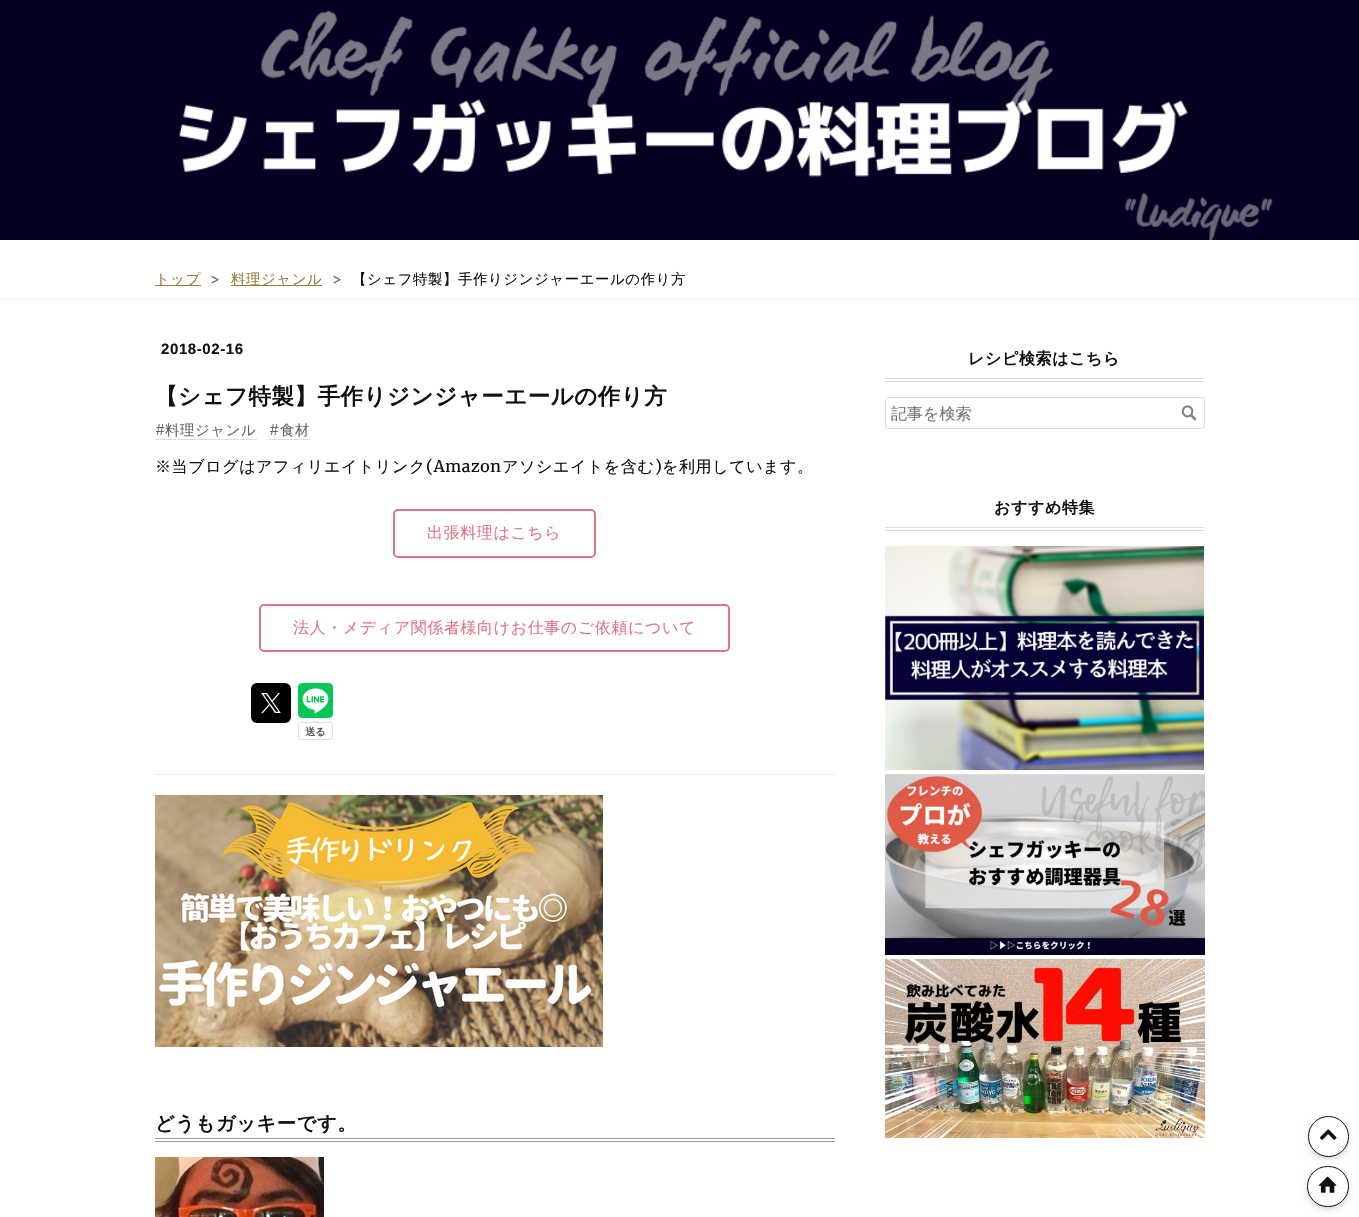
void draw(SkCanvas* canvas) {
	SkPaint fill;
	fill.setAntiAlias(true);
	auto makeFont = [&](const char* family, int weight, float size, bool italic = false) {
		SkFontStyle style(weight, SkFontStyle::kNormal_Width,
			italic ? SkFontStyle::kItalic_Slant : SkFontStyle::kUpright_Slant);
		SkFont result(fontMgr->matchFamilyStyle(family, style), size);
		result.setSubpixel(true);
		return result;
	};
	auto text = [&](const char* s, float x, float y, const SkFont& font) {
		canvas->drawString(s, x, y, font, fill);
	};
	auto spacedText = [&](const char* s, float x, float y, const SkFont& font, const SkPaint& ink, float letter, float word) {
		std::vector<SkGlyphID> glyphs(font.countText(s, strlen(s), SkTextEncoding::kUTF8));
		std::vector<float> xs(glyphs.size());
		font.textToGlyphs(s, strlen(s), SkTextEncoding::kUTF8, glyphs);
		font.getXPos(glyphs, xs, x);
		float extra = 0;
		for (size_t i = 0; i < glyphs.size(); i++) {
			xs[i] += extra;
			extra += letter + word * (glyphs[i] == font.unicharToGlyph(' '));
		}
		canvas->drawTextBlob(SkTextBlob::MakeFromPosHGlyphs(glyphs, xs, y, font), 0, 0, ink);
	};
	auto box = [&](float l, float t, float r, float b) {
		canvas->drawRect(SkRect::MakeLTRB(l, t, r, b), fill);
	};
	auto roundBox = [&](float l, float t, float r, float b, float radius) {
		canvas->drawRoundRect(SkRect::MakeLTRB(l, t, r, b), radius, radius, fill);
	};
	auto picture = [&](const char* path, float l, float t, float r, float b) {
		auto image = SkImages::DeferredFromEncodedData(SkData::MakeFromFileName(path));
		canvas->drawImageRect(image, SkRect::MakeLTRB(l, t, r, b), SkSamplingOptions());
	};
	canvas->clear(0xFFFFFFFF);
	fill.setColor(0xFF050021);
	box(0, 0, 1359, 240);
	picture("image0.png", 179, 10, 1273, 240);
	fill.setColor(0xFF977D3B);
	box(155, 285, 201, 286);
	box(231, 285, 322, 286);
	fill.setColor(0xFFF0F0F0);
	box(0, 299, 1359, 300);
	fill.setColor(0xFFEEEEEE);
	box(155, 774, 835, 775);
	fill.setColor(0xFFDDDDDD);
	box(155, 439, 257, 440);
	box(269, 439, 310, 440);
	fill.setStyle(SkPaint::kStroke_Style);
	fill.setStrokeWidth(2);
	fill.setColor(0xFFE07487);
	canvas->drawRoundRect(SkRect::MakeLTRB(394, 510, 595, 557), 4, 4, fill);
	canvas->drawRoundRect(SkRect::MakeLTRB(260, 605, 729, 651), 4, 4, fill);
	fill.setStyle(SkPaint::kFill_Style);
	fill.setColor(0xFF000000);
	roundBox(251, 683, 291, 723, 6);
	picture("image1.png", 261, 693, 281, 713);
	picture("image2.png", 298, 683, 333, 740);
	picture("image3.png", 155, 795, 603, 1047);
	fill.setColor(0xFF999999);
	box(155, 1138, 835, 1139);
	box(155, 1141, 835, 1142);
	picture("image4.png", 155, 1157, 324, 1217);
	fill.setColor(0xFFDDDDDD);
	box(885, 378, 1205, 379);
	box(885, 381, 1205, 382);
	fill.setStyle(SkPaint::kStroke_Style);
	fill.setStrokeWidth(1);
	canvas->drawRoundRect(SkRect::MakeLTRB(885.5f, 397.5f, 1204.5f, 428.5f), 2.5f, 2.5f, fill);
	picture("image5.png", 1182, 405, 1197, 421);
	fill.setStyle(SkPaint::kFill_Style);
	box(885, 527, 1205, 528);
	box(885, 530, 1205, 531);
	picture("image6.png", 885, 546, 1204, 770);
	picture("image7.png", 885, 774, 1205, 955);
	picture("image8.png", 885, 959, 1205, 1138);
	fill.setColor(0x33000000);
	fill.setMaskFilter(SkMaskFilter::MakeBlur(kNormal_SkBlurStyle, 5));
	canvas->drawRoundRect(SkRect::MakeLTRB(1312, 1123, 1345, 1156), 16.5f, 16.5f, fill);
	fill.setMaskFilter(nullptr);
	fill.setColor(0x80000000);
	fill.setMaskFilter(SkMaskFilter::MakeBlur(kNormal_SkBlurStyle, 5));
	canvas->drawRoundRect(SkRect::MakeLTRB(1314, 1124, 1343, 1153), 14.5f, 14.5f, fill);
	fill.setMaskFilter(nullptr);
	fill.setColor(0xFFFFFFFF);
	canvas->drawCircle(1328.5f, 1136.5f, 20, fill);
	fill.setStyle(SkPaint::kStroke_Style);
	fill.setColor(0xFF111111);
	canvas->drawCircle(1328.5f, 1136.5f, 20, fill);
	picture("image9.png", 1320, 1129, 1337, 1140);
	fill.setStyle(SkPaint::kFill_Style);
	fill.setColor(0x33000000);
	fill.setMaskFilter(SkMaskFilter::MakeBlur(kNormal_SkBlurStyle, 5));
	canvas->drawRoundRect(SkRect::MakeLTRB(1311, 1173, 1345, 1206), 16.5f, 16.5f, fill);
	fill.setMaskFilter(nullptr);
	fill.setColor(0x80000000);
	fill.setMaskFilter(SkMaskFilter::MakeBlur(kNormal_SkBlurStyle, 5));
	canvas->drawRoundRect(SkRect::MakeLTRB(1313, 1174, 1343, 1203), 14.5f, 14.5f, fill);
	fill.setMaskFilter(nullptr);
	fill.setColor(0xFFFFFFFF);
	canvas->drawRoundRect(SkRect::MakeLTRB(1307.5f, 1166.5f, 1348.5f, 1206.5f), 20, 20, fill);
	fill.setStyle(SkPaint::kStroke_Style);
	fill.setColor(0xFF111111);
	canvas->drawRoundRect(SkRect::MakeLTRB(1307.5f, 1166.5f, 1348.5f, 1206.5f), 20, 20, fill);
	picture("image10.png", 1318, 1176, 1337, 1193);
	auto font1 = makeFont("WenQuanYi Zen Hei", 500, 14.4f);
	fill.setStyle(SkPaint::kFill_Style);
	fill.setColor(0xFF977D3B);
	spacedText("トップ", 155, 284, font1, fill, 0.6f, 0);
	auto font2 = makeFont("Merriweather", 400, 14.4f);
	fill.setColor(0xFF585858);
	spacedText(">", 210, 284, font2, fill, 0.6f, 0);
	fill.setColor(0xFF977D3B);
	spacedText("料理ジャンル", 231, 284, font1, fill, 0.6f, 0);
	fill.setColor(0xFF585858);
	spacedText(">", 332, 284, font2, fill, 0.6f, 0);
	fill.setColor(0xFF111111);
	spacedText("【シェフ特製】手作りジンジャーエールの作り方", 352, 284, font1, fill, 0.6f, 0);
	auto font3 = makeFont("Liberation Sans", 700, 15);
	spacedText("2018-02-16", 161, 354, font3, fill, 0.6f, 0);
	auto font4 = makeFont("WenQuanYi Zen Hei", 700, 22.4f);
	spacedText("【シェフ特製】手作りジンジャーエールの作り方", 155, 404, font4, fill, 0.6f, 0);
	fill.setColor(0xFF666666);
	spacedText("#", 155, 435, font2, fill, 0.6f, 0);
	spacedText("料理ジャンル", 165, 435, font1, fill, 0.6f, 0);
	spacedText("#", 269, 435, font2, fill, 0.6f, 0);
	spacedText("食材", 280, 435, font1, fill, 0.6f, 0);
	auto font5 = makeFont("WenQuanYi Zen Hei", 500, 16);
	fill.setColor(0xFF111111);
	spacedText("※当ブログはアフィリエイトリンク", 155, 472, font5, fill, 0.6f, 0);
	auto font6 = makeFont("Merriweather", 400, 16);
	spacedText("(Amazon", 426, 472, font6, fill, 0.6f, 0);
	spacedText("アソシエイトを含む", 502, 472, font5, fill, 0.6f, 0);
	spacedText(")", 655, 472, font6, fill, 0.6f, 0);
	spacedText("を利用しています。", 662, 472, font5, fill, 0.6f, 0);
	fill.setColor(0xFFE07487);
	spacedText("出張料理はこちら", 427, 538, font5, fill, 0.6f, 0);
	spacedText("法人・メディア関係者様向けお仕事のご依頼について", 293, 633, font5, fill, 0.6f, 0);
	auto font7 = makeFont("WenQuanYi Zen Hei", 700, 19.25f);
	fill.setColor(0xFF111111);
	spacedText("どうもガッキーです。", 155, 1130, font7, fill, 0.6f, 0);
	auto font8 = makeFont("WenQuanYi Zen Hei", 700, 16);
	spacedText("レシピ検索はこちら", 968, 364, font8, fill, 0.6f, 0);
	fill.setColor(0xFF757575);
	text("記事を検索", 891, 419, font5);
	fill.setColor(0xFF111111);
	spacedText("おすすめ特集", 994, 513, font8, fill, 0.6f, 0);
}
